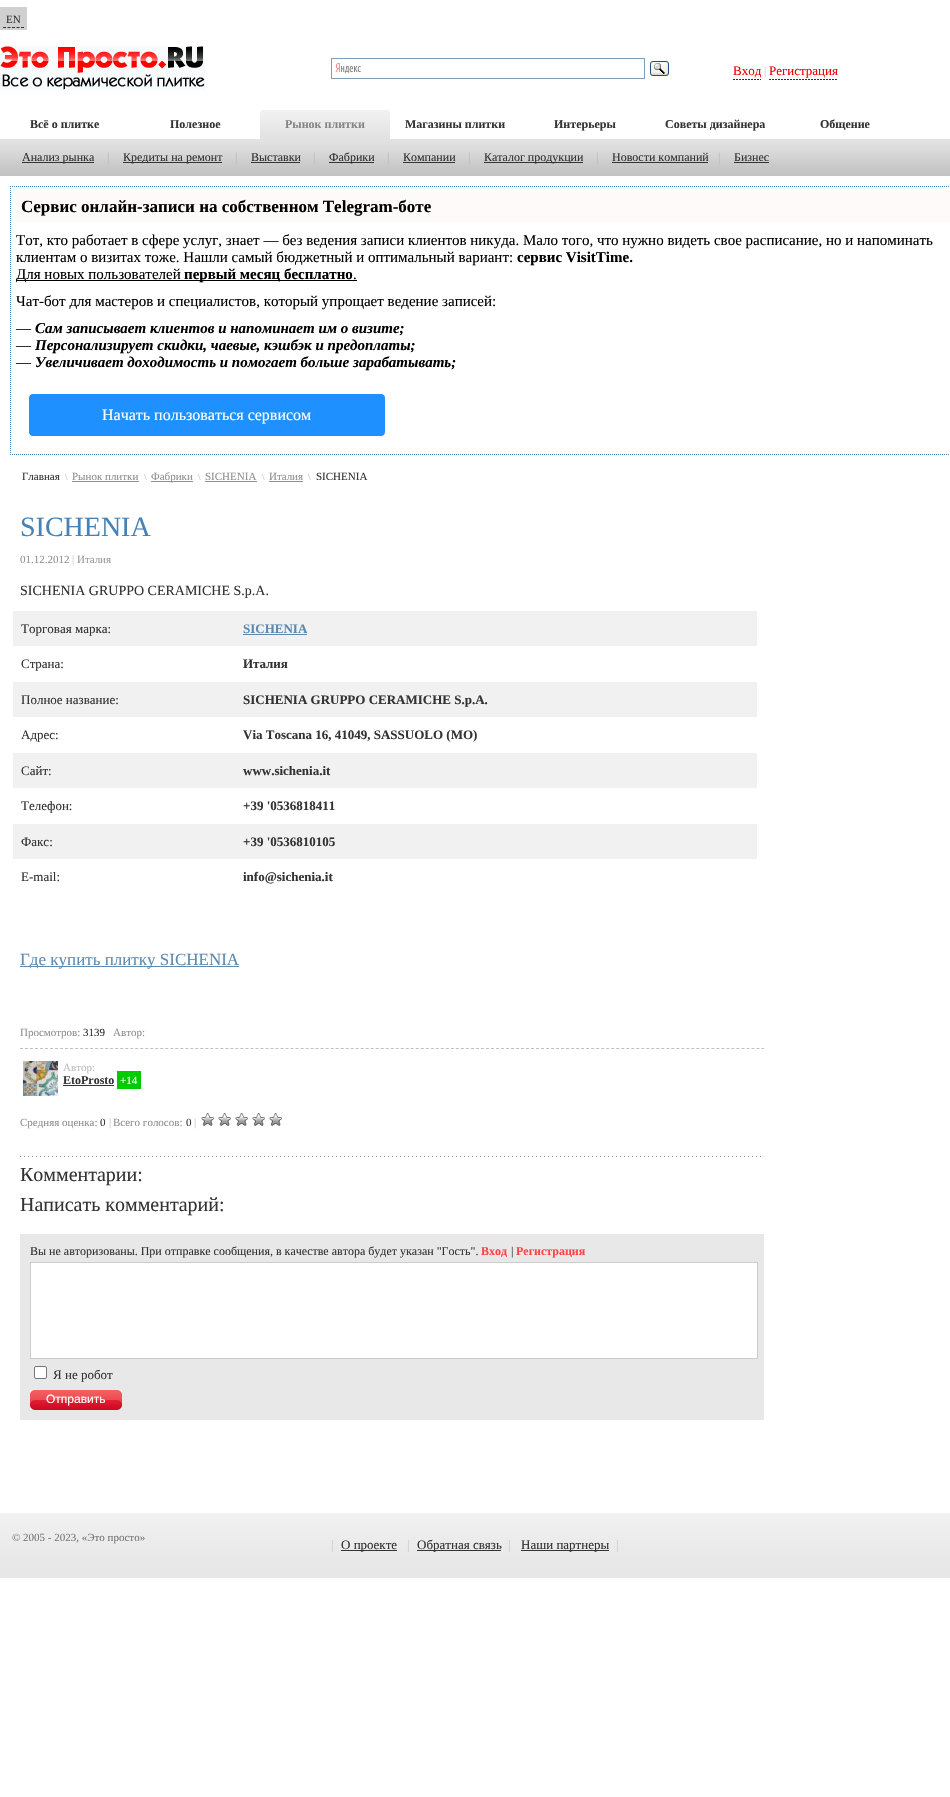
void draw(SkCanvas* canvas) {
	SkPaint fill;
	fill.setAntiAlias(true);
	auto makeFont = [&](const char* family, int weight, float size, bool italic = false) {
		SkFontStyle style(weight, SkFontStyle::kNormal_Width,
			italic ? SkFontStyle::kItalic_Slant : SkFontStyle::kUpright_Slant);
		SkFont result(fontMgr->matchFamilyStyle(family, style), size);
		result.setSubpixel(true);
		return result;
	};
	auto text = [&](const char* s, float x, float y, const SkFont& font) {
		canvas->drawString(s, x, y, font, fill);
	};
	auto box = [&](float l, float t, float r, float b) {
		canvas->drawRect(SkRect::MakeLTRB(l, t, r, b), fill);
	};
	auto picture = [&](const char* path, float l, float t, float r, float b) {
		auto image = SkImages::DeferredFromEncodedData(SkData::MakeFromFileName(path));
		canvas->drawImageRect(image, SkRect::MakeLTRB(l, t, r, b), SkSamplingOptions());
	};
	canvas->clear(0xFFFFFFFF);
	fill.setColor(0xFFD0D0D0);
	box(0, 7, 27, 30);
	fill.setStyle(SkPaint::kStroke_Style);
	fill.setStrokeWidth(1);
	fill.setColor(0xFF333333);
	fill.setPathEffect(SkDashPathEffect::Make({{3, 1.5f}}, 0));
	canvas->drawPath(SkPathBuilder().moveTo(3, 27.5f).lineTo(24, 27.5f).detach(), fill);
	fill.setPathEffect(nullptr);
	picture("image0.png", 0, 46, 205, 90);
	picture("image1.png", 335, 63, 361, 74);
	fill.setColor(0xFF7F9DB9);
	canvas->drawRect(SkRect::MakeLTRB(331.5f, 58.5f, 644.5f, 78.5f), fill);
	picture("image2.png", 650, 61, 669, 76);
	picture("image3.png", 733, 79, 761, 80);
	picture("image4.png", 769, 79, 837, 80);
	picture("image5.png", 260, 110, 390, 139);
	picture("image6.png", 0, 139, 950, 176);
	fill.setStyle(SkPaint::kFill_Style);
	fill.setColor(0xFF333333);
	box(22, 162, 94, 163);
	box(123, 162, 222, 163);
	box(251, 162, 300, 163);
	box(329, 162, 374, 163);
	box(403, 162, 455, 163);
	box(484, 162, 583, 163);
	box(612, 162, 708, 163);
	box(734, 162, 769, 163);
	fill.setStyle(SkPaint::kStroke_Style);
	fill.setColor(0xFF4682B4);
	fill.setPathEffect(SkDashPathEffect::Make({{1, 1}}, 0));
	canvas->drawPath(SkPathBuilder().moveTo(10, 186.5f).lineTo(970, 186.5f).detach(), fill);
	fill.setPathEffect(nullptr);
	fill.setPathEffect(SkDashPathEffect::Make({{1, 1}}, 0));
	canvas->drawPath(SkPathBuilder().moveTo(10, 454.5f).lineTo(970, 454.5f).detach(), fill);
	fill.setPathEffect(nullptr);
	fill.setPathEffect(SkDashPathEffect::Make({{1, 1}}, 0));
	canvas->drawPath(SkPathBuilder().moveTo(10.5f, 186).lineTo(10.5f, 455).detach(), fill);
	fill.setPathEffect(nullptr);
	fill.setStyle(SkPaint::kFill_Style);
	fill.setColor(0xFFFFFAFA);
	box(16, 192, 950, 222);
	fill.setColor(0xFF000000);
	box(16, 280, 357, 281);
	fill.setColor(0xFF1E90FF);
	canvas->drawRoundRect(SkRect::MakeLTRB(28.5f, 393.5f, 385.5f, 436.5f), 4.5f, 4.5f, fill);
	fill.setStyle(SkPaint::kStroke_Style);
	fill.setColor(0xFFFFFFFF);
	canvas->drawRoundRect(SkRect::MakeLTRB(28.5f, 393.5f, 385.5f, 436.5f), 4.5f, 4.5f, fill);
	fill.setStyle(SkPaint::kFill_Style);
	fill.setColor(0xFF909090);
	box(72, 481, 139, 482);
	box(151, 481, 193, 482);
	box(205, 481, 257, 482);
	box(269, 481, 303, 482);
	fill.setColor(0xFFF1F1F1);
	box(13, 611, 757, 646);
	fill.setColor(0xFF5D8AB0);
	box(243, 634, 307, 635);
	fill.setColor(0xFFF1F1F1);
	box(13, 682, 757, 717);
	box(13, 753, 757, 788);
	box(13, 824, 757, 859);
	fill.setColor(0xFF5D8AB0);
	box(20, 966, 239, 967);
	fill.setStyle(SkPaint::kStroke_Style);
	fill.setColor(0xFFC0C0C0);
	fill.setPathEffect(SkDashPathEffect::Make({{3, 2.01f}}, 0));
	canvas->drawPath(SkPathBuilder().moveTo(20, 1048.5f).lineTo(764, 1048.5f).detach(), fill);
	fill.setPathEffect(nullptr);
	picture("image7.png", 23, 1061, 58, 1096);
	fill.setStyle(SkPaint::kFill_Style);
	fill.setColor(0xFF333333);
	box(63, 1085, 114, 1086);
	fill.setColor(0xFF00CC00);
	box(117, 1071, 141, 1089);
	picture("image8.png", 201, 1113, 214, 1126);
	picture("image8.png", 218, 1113, 231, 1126);
	picture("image8.png", 235, 1113, 248, 1126);
	picture("image8.png", 252, 1113, 265, 1126);
	picture("image8.png", 269, 1113, 282, 1126);
	picture("image9.png", 20, 1156, 761, 1157);
	fill.setColor(0xFFE8E8E8);
	box(20, 1234, 764, 1420);
	fill.setColor(0xFFFFFFFF);
	canvas->drawRect(SkRect::MakeLTRB(30.5f, 1262.5f, 757.5f, 1358.5f), fill);
	fill.setStyle(SkPaint::kStroke_Style);
	fill.setColor(0xFFCCCCCC);
	canvas->drawRect(SkRect::MakeLTRB(30.5f, 1262.5f, 757.5f, 1358.5f), fill);
	fill.setStyle(SkPaint::kFill_Style);
	fill.setColor(0xFFFFFFFF);
	canvas->drawRoundRect(SkRect::MakeLTRB(34.5f, 1366.5f, 46.5f, 1378.5f), 1.5f, 1.5f, fill);
	fill.setStyle(SkPaint::kStroke_Style);
	fill.setColor(0xFF767676);
	canvas->drawRoundRect(SkRect::MakeLTRB(34.5f, 1366.5f, 46.5f, 1378.5f), 1.5f, 1.5f, fill);
	picture("image10.png", 35, 1390, 117, 1410);
	picture("image11.png", 30, 1390, 35, 1410);
	picture("image12.png", 117, 1390, 122, 1410);
	picture("image13.png", 0, 1513, 950, 1578);
	fill.setStyle(SkPaint::kFill_Style);
	fill.setColor(0xFF333333);
	box(341, 1550, 397, 1551);
	box(417, 1550, 501, 1551);
	box(521, 1550, 609, 1551);
	auto font1 = makeFont("Liberation Serif", 400, 11);
	text("EN", 6, 23, font1);
	auto font2 = makeFont("Liberation Serif", 400, 13);
	fill.setColor(0xFFF00000);
	text("Вход", 733, 75, font2);
	fill.setColor(0xFFCCCCCC);
	text("|", 764, 75, font1);
	fill.setColor(0xFFF00000);
	text("Регистрация", 769, 75, font2);
	auto font3 = makeFont("Liberation Serif", 700, 12);
	fill.setColor(0xFF333333);
	text("Всё о плитке", 30, 128, font3);
	text("Полезное", 170, 128, font3);
	fill.setColor(0xFF858585);
	text("Рынок плитки", 285, 128, font3);
	fill.setColor(0xFF333333);
	text("Магазины плитки", 405, 128, font3);
	text("Интерьеры", 554, 128, font3);
	text("Советы дизайнера", 665, 128, font3);
	text("Общение", 820, 128, font3);
	auto font4 = makeFont("Liberation Serif", 400, 12);
	text("Анализ рынка", 22, 161, font4);
	fill.setColor(0xFFB9B9B9);
	text("|", 107, 161, font4);
	fill.setColor(0xFF333333);
	text("Кредиты на ремонт", 123, 161, font4);
	fill.setColor(0xFFB9B9B9);
	text("|", 235, 161, font4);
	fill.setColor(0xFF333333);
	text("Выставки", 251, 161, font4);
	fill.setColor(0xFFB9B9B9);
	text("|", 313, 161, font4);
	fill.setColor(0xFF333333);
	text("Фабрики", 329, 161, font4);
	fill.setColor(0xFFB9B9B9);
	text("|", 387, 161, font4);
	fill.setColor(0xFF333333);
	text("Компании", 403, 161, font4);
	fill.setColor(0xFFB9B9B9);
	text("|", 468, 161, font4);
	fill.setColor(0xFF333333);
	text("Каталог продукции", 484, 161, font4);
	fill.setColor(0xFFB9B9B9);
	text("|", 596, 161, font4);
	fill.setColor(0xFF333333);
	text("Новости компаний", 612, 161, font4);
	fill.setColor(0xFFB9B9B9);
	text("|", 718, 161, font4);
	fill.setColor(0xFF333333);
	text("Бизнес", 734, 161, font4);
	auto font5 = makeFont("Liberation Serif", 700, 17);
	fill.setColor(0xFF000000);
	text("Сервис онлайн-записи на собственном Telegram-боте", 21, 212, font5);
	auto font6 = makeFont("Liberation Serif", 400, 15);
	text("Тот, кто работает в сфере услуг, знает — без ведения записи клиентов никуда. Мало того, что нужно видеть свое расписание, но и напоминать", 16, 245, font6);
	text("клиентам о визитах тоже. Нашли самый бюджетный и оптимальный вариант:", 16, 262, font6);
	auto font7 = makeFont("Liberation Serif", 700, 15);
	text("сервис VisitTime.", 517, 262, font7);
	text("Для новых пользователей", 16, 279, font6);
	text("первый месяц бесплатно", 184, 279, font7);
	text(".", 353, 279, font6);
	text("Чат-бот для мастеров и специалистов, который упрощает ведение записей:", 16, 306, font6);
	text("—", 16, 333, font6);
	auto font8 = makeFont("Liberation Serif", 700, 15, true);
	text("Сам записывает клиентов и напоминает им о визите;", 35, 333, font8);
	text("—", 16, 350, font6);
	text("Персонализирует скидки, чаевые, кэшбэк и предоплаты;", 35, 350, font8);
	text("—", 16, 367, font6);
	text("Увеличивает доходимость и помогает больше зарабатывать;", 35, 367, font8);
	auto font9 = makeFont("Liberation Serif", 400, 16);
	fill.setColor(0xFFFFFFFF);
	text("Начать пользоваться сервисом", 102, 420, font9);
	fill.setColor(0xFF333333);
	text("Главная", 22, 480, font1);
	auto font10 = makeFont("Liberation Serif", 700, 9);
	fill.setColor(0xFFCCCCCC);
	text("\\", 65, 480, font10);
	fill.setColor(0xFF909090);
	text("Рынок плитки", 72, 480, font1);
	fill.setColor(0xFFCCCCCC);
	text("\\", 144, 480, font10);
	fill.setColor(0xFF909090);
	text("Фабрики", 151, 480, font1);
	fill.setColor(0xFFCCCCCC);
	text("\\", 198, 480, font10);
	fill.setColor(0xFF909090);
	text("SICHENIA", 205, 480, font1);
	fill.setColor(0xFFCCCCCC);
	text("\\", 262, 480, font10);
	fill.setColor(0xFF909090);
	text("Италия", 269, 480, font1);
	fill.setColor(0xFFCCCCCC);
	text("\\", 308, 480, font10);
	fill.setColor(0xFF333333);
	text("SICHENIA", 316, 480, font1);
	auto font11 = makeFont("Liberation Serif", 400, 28);
	fill.setColor(0xFF4682B4);
	text("SICHENIA", 20, 536, font11);
	fill.setColor(0xFF909090);
	text("01.12.2012", 20, 563, font1);
	fill.setColor(0xFFCCCCCC);
	text("|", 72, 563, font1);
	fill.setColor(0xFF999999);
	text("Италия", 77, 563, font1);
	auto font12 = makeFont("Liberation Serif", 400, 14);
	fill.setColor(0xFF333333);
	text("SICHENIA GRUPPO CERAMICHE S.p.A.", 20, 595, font12);
	text("Торговая марка:", 21, 633, font2);
	auto font13 = makeFont("Liberation Serif", 700, 13);
	fill.setColor(0xFF5D8AB0);
	text("SICHENIA", 243, 633, font13);
	fill.setColor(0xFF333333);
	text("Страна:", 21, 668, font2);
	text("Италия", 243, 668, font13);
	text("Полное название:", 21, 704, font2);
	text("SICHENIA GRUPPO CERAMICHE S.p.A.", 243, 704, font13);
	text("Адрес:", 21, 739, font2);
	text("Via Toscana 16, 41049, SASSUOLO (MO)", 243, 739, font13);
	text("Сайт:", 21, 775, font2);
	text("www.sichenia.it", 243, 775, font13);
	text("Телефон:", 21, 810, font2);
	text("+39 '0536818411", 243, 810, font13);
	text("Факс:", 21, 846, font2);
	text("+39 '0536810105", 243, 846, font13);
	text("E-mail:", 21, 881, font2);
	text("info@sichenia.it", 243, 881, font13);
	auto font14 = makeFont("Liberation Serif", 400, 17);
	fill.setColor(0xFF5D8AB0);
	text("Где купить плитку SICHENIA", 20, 965, font14);
	fill.setColor(0xFF909090);
	text("Просмотров:", 20, 1036, font1);
	fill.setColor(0xFF333333);
	text("3139", 83, 1036, font1);
	fill.setColor(0xFF909090);
	text("Автор:", 113, 1036, font1);
	fill.setColor(0xFFC0C0C0);
	text("Автор:", 63, 1071, font1);
	fill.setColor(0xFF333333);
	text("EtoProsto", 63, 1084, font3);
	fill.setColor(0xFFFFFFFF);
	text("+14", 120, 1084, font1);
	fill.setColor(0xFF909090);
	text("Cредняя оценка:", 20, 1126, font1);
	fill.setColor(0xFF333333);
	text("0", 100, 1126, font1);
	fill.setColor(0xFFCCCCCC);
	text("|", 109, 1126, font1);
	fill.setColor(0xFF909090);
	text("Всего голосов:", 113, 1126, font1);
	fill.setColor(0xFF333333);
	text("0", 186, 1126, font1);
	fill.setColor(0xFFCCCCCC);
	text("|", 194, 1126, font1);
	auto font15 = makeFont("Liberation Serif", 400, 20);
	fill.setColor(0xFF333333);
	text("Комментарии:", 20, 1181, font15);
	text("Написать комментарий:", 20, 1211, font15);
	text("Вы не авторизованы. При отправке сообщения, в качестве автора будет указан \"Гость\".", 30, 1255, font4);
	fill.setColor(0xFFFF4342);
	text("Вход", 481, 1255, font3);
	fill.setColor(0xFF333333);
	text("|", 511, 1255, font4);
	fill.setColor(0xFFFF4342);
	text("Регистрация", 516, 1255, font3);
	fill.setColor(0xFF333333);
	text("Я не робот", 53, 1379, font2);
	auto font16 = makeFont("Liberation Sans", 400, 12);
	fill.setColor(0xFFFFFFFF);
	text("Отправить", 46, 1403, font16);
	fill.setColor(0xFF777777);
	text("© 2005 - 2023, «Это просто»", 12, 1541, font1);
	fill.setColor(0xFFCCCCCC);
	text("|", 331, 1549, font2);
	fill.setColor(0xFF333333);
	text("О проекте", 341, 1549, font2);
	fill.setColor(0xFFCCCCCC);
	text("|", 407, 1549, font2);
	fill.setColor(0xFF333333);
	text("Обратная связь", 417, 1549, font2);
	fill.setColor(0xFFCCCCCC);
	text("|", 508, 1549, font2);
	fill.setColor(0xFF333333);
	text("Наши партнеры", 521, 1549, font2);
	fill.setColor(0xFFCCCCCC);
	text("|", 616, 1549, font2);
}
